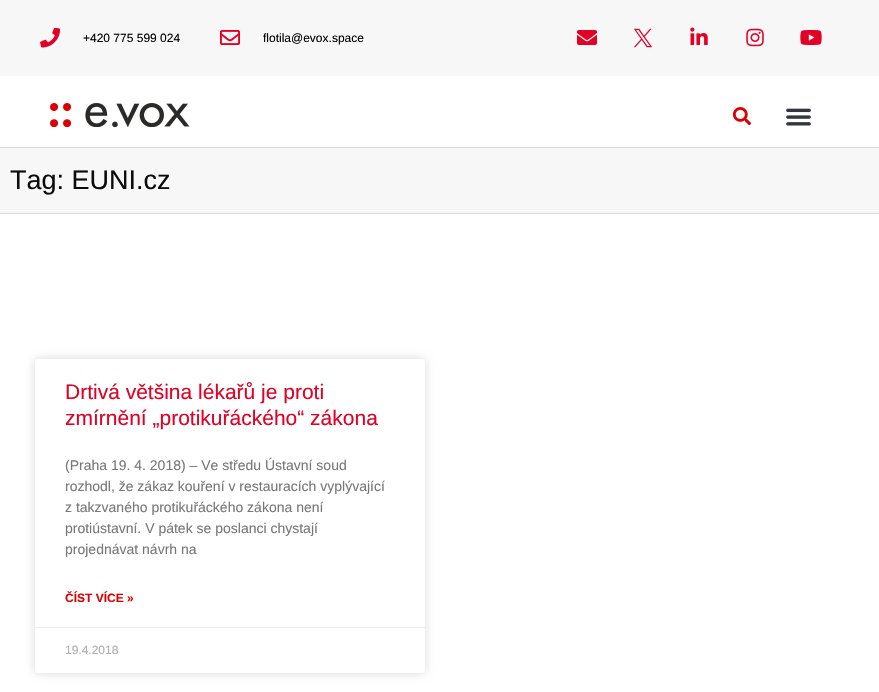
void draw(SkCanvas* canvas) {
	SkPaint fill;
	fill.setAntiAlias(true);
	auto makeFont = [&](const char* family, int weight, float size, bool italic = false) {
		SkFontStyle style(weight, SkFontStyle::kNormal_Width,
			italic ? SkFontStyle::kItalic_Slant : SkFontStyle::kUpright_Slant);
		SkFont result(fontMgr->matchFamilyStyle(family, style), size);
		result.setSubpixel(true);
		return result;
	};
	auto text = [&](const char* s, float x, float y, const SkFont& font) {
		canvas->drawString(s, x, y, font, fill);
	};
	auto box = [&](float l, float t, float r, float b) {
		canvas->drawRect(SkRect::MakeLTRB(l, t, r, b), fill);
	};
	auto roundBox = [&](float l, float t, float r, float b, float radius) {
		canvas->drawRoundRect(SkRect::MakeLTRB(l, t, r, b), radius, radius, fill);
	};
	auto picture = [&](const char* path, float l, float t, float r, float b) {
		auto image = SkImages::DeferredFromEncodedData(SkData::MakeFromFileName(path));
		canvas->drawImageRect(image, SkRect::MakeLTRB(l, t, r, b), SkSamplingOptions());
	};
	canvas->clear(0xFFFFFFFF);
	fill.setColor(0xFFF7F7F7);
	box(0, 0, 879, 76);
	picture("image0.png", 40, 28, 60, 48);
	picture("image1.png", 220, 30, 240, 45);
	picture("image2.png", 577, 30, 597, 45);
	picture("image3.png", 633, 28, 653, 48);
	picture("image4.png", 690, 27, 708, 45);
	picture("image5.png", 746, 28, 764, 47);
	picture("image6.png", 800, 30, 822, 45);
	fill.setColor(0xFFD8D8D8);
	box(0, 147, 879, 148);
	picture("image7.png", 50, 103, 190, 127);
	picture("image8.png", 732, 107, 751, 126);
	picture("image9.png", 786, 108, 811, 126);
	fill.setColor(0xFFF7F7F7);
	box(0, 148, 879, 213);
	fill.setColor(0xFFD8D8D8);
	box(0, 213, 879, 214);
	fill.setColor(0x26000000);
	fill.setMaskFilter(SkMaskFilter::MakeBlur(kNormal_SkBlurStyle, 5));
	canvas->drawRoundRect(SkRect::MakeLTRB(35, 359, 425, 673), 3, 3, fill);
	fill.setMaskFilter(nullptr);
	fill.setColor(0xFFFFFFFF);
	roundBox(35, 359, 425, 673, 3);
	fill.setColor(0xFFEAEAEA);
	box(35, 627, 425, 628);
	auto font1 = makeFont("Liberation Sans", 400, 12);
	fill.setColor(0xFF000000);
	text("+420 775 599 024", 83, 42, font1);
	text("flotila@evox.space", 263, 42, font1);
	auto font2 = makeFont("Liberation Sans", 400, 27);
	fill.setColor(0xFF0C0C0C);
	text("Tag: EUNI.cz", 10, 189, font2);
	auto font3 = makeFont("Liberation Sans", 400, 21);
	fill.setColor(0xFFE20025);
	text("Drtivá většina lékařů je proti", 65, 399, font3);
	text("zmírnění „protikuřáckého“ zákona", 65, 425, font3);
	auto font4 = makeFont("Liberation Sans", 400, 14);
	fill.setColor(0xFF777777);
	text("(Praha 19. 4. 2018) – Ve středu Ústavní soud", 65, 470, font4);
	text("rozhodl, že zákaz kouření v restauracích vyplývající", 65, 491, font4);
	text("z takzvaného protikuřáckého zákona není", 65, 512, font4);
	text("protiústavní. V pátek se poslanci chystají", 65, 533, font4);
	text("projednávat návrh na", 65, 554, font4);
	auto font5 = makeFont("Liberation Sans", 700, 12);
	fill.setColor(0xFFDD0000);
	text("ČÍST VÍCE »", 65, 602, font5);
	fill.setColor(0xFFADADAD);
	text("19.4.2018", 65, 654, font1);
}
